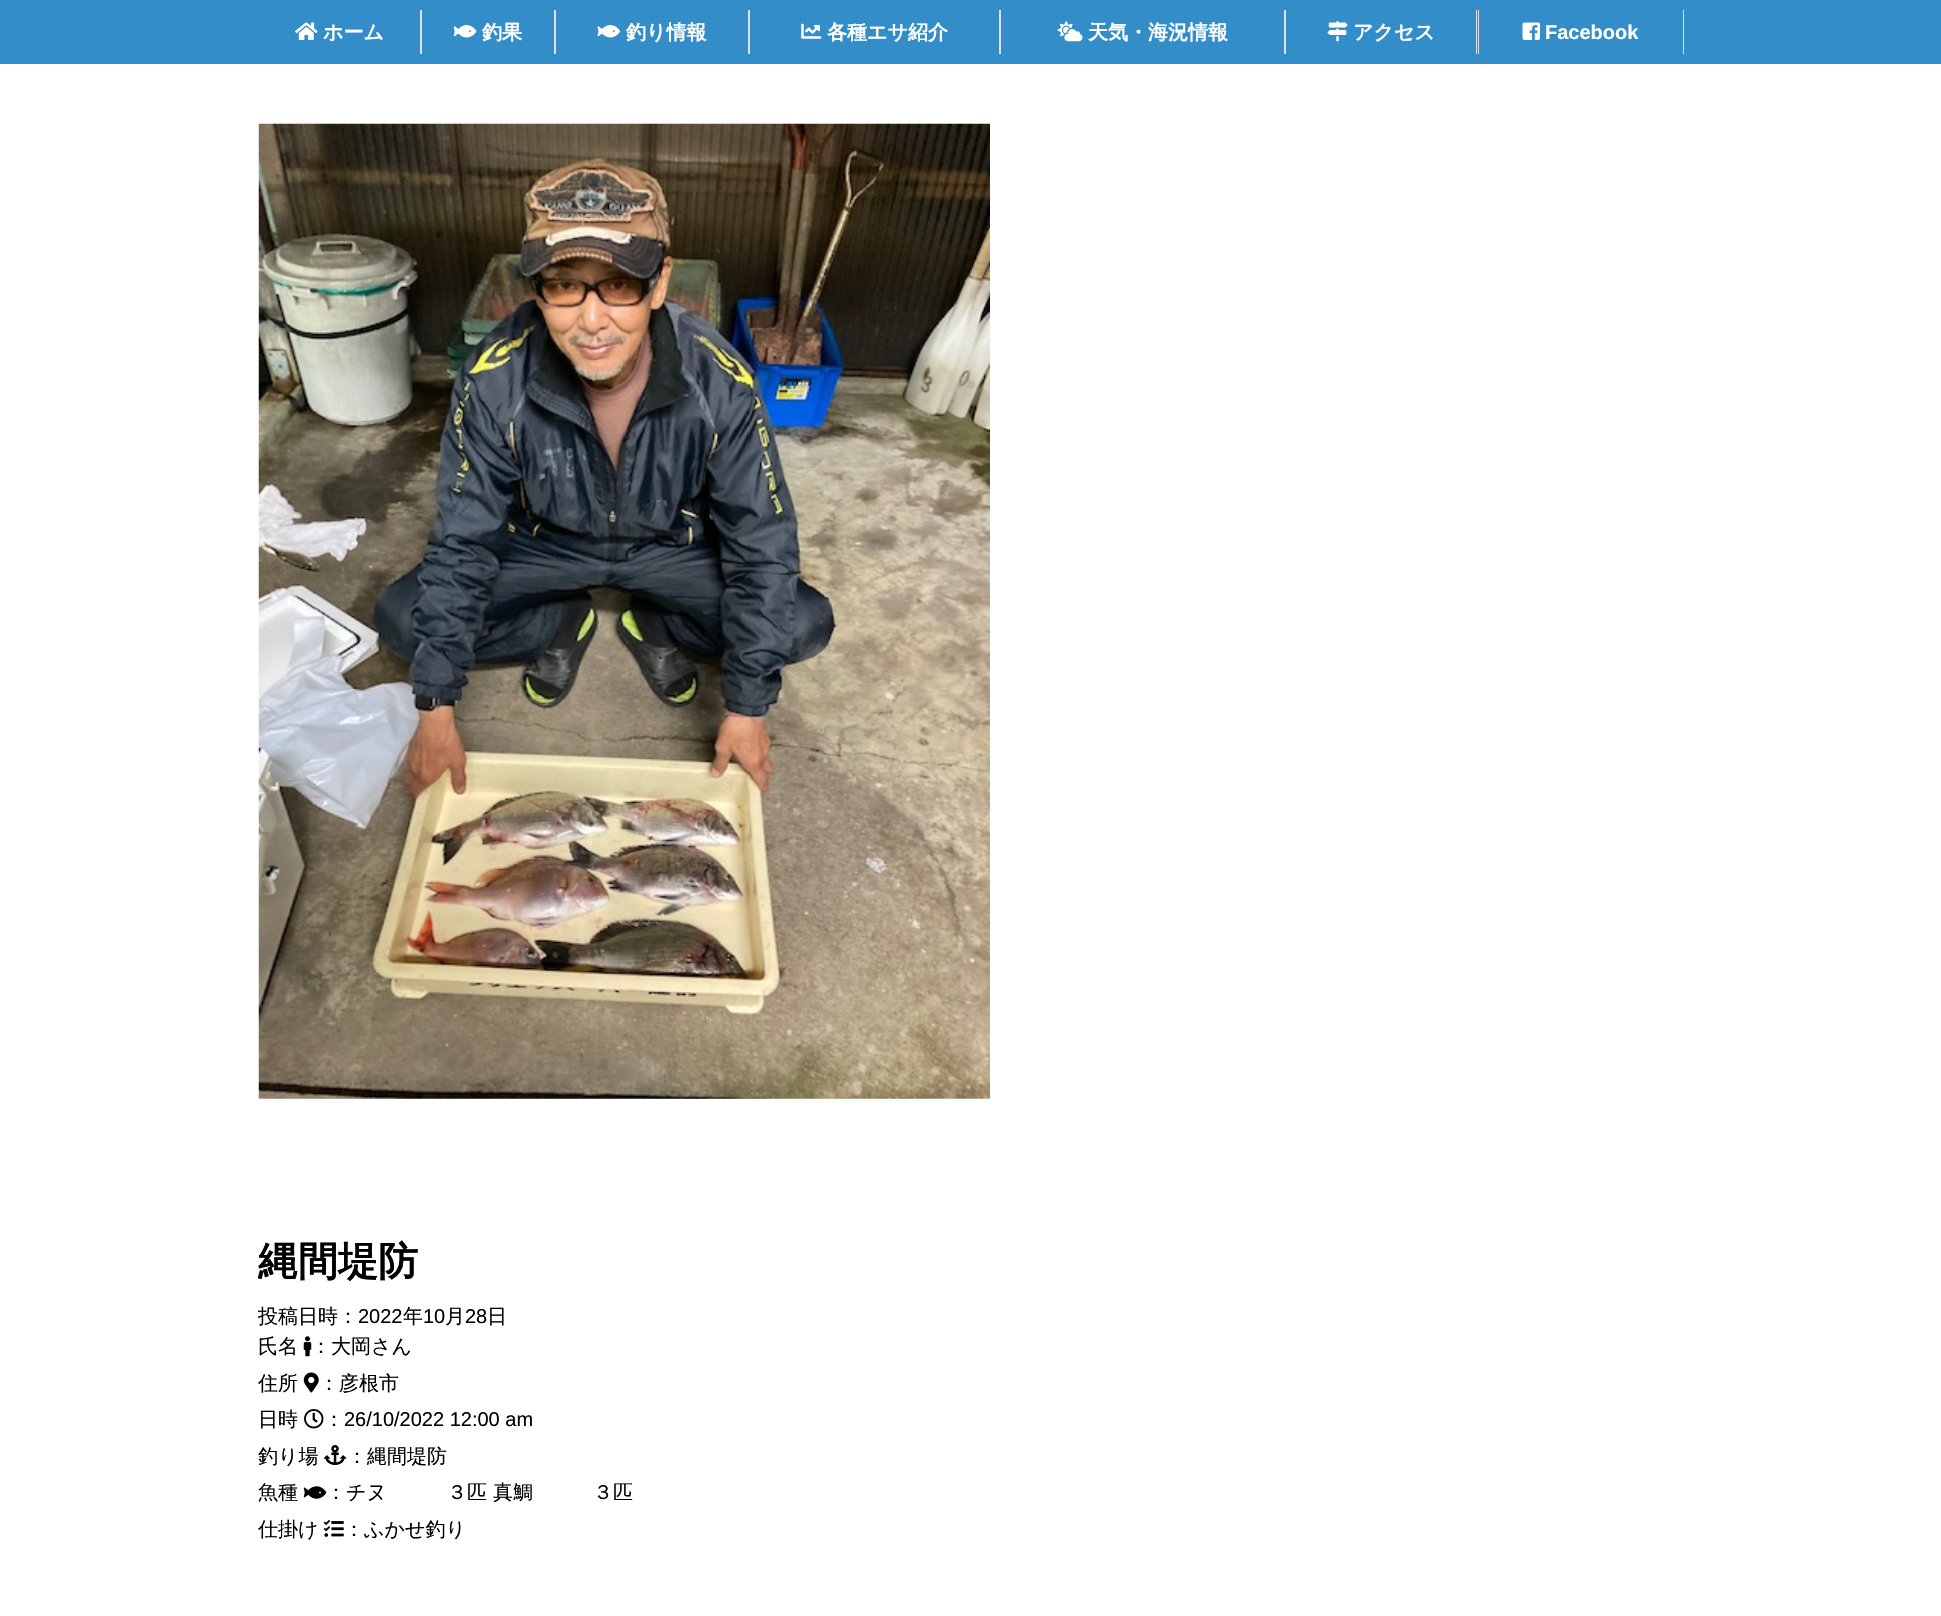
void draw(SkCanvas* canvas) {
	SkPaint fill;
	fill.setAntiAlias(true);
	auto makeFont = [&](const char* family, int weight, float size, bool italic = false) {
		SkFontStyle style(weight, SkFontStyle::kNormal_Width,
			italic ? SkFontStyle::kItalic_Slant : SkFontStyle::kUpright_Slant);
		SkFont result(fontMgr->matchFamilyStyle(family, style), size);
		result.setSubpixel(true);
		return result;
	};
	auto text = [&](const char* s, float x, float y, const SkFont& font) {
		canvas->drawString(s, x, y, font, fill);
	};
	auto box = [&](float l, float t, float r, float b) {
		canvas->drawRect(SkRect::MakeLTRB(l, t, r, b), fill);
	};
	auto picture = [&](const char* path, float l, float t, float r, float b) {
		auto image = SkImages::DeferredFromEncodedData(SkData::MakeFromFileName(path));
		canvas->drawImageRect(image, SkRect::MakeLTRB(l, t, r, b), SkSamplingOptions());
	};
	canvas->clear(0xFFFFFFFF);
	fill.setColor(0xFF338DC9);
	box(0, 0, 1941, 64);
	fill.setColor(0xFFDEE2E6);
	box(420, 10, 422, 54);
	picture("image0.png", 295, 22, 318, 40);
	box(554, 10, 556, 54);
	picture("image1.png", 453, 25, 477, 38);
	box(748, 10, 750, 54);
	picture("image2.png", 597, 25, 620, 38);
	box(999, 10, 1001, 54);
	picture("image3.png", 801, 23, 822, 39);
	box(1284, 10, 1286, 54);
	picture("image4.png", 1057, 21, 1083, 42);
	box(1476, 10, 1477, 54);
	picture("image5.png", 1327, 21, 1348, 42);
	box(1683, 10, 1684, 54);
	box(1478, 10, 1479, 54);
	picture("image6.png", 1522, 22, 1540, 40);
	picture("image7.png", 258, 123, 990, 1099);
	picture("image8.png", 303, 1336, 312, 1357);
	picture("image9.png", 303, 1372, 319, 1393);
	picture("image10.png", 304, 1409, 324, 1429);
	picture("image11.png", 323, 1445, 347, 1465);
	picture("image12.png", 303, 1486, 327, 1499);
	picture("image13.png", 323, 1520, 344, 1537);
	auto font1 = makeFont("WenQuanYi Zen Hei", 700, 20);
	fill.setColor(0xFFFFFFFF);
	text("ホーム", 323, 39, font1);
	text("釣果", 482, 39, font1);
	text("釣り情報", 626, 39, font1);
	text("各種エサ紹介", 827, 39, font1);
	text("天気・海況情報", 1088, 39, font1);
	text("アクセス", 1353, 39, font1);
	auto font2 = makeFont("Liberation Sans", 700, 20);
	text("Facebook", 1545, 39, font2);
	auto font3 = makeFont("WenQuanYi Zen Hei", 700, 40);
	fill.setColor(0xFF000000);
	text("縄間堤防", 258, 1275, font3);
	auto font4 = makeFont("WenQuanYi Zen Hei", 500, 20);
	text("投稿日時：", 258, 1323, font4);
	auto font5 = makeFont("Liberation Sans", 400, 20);
	text("2022", 358, 1323, font5);
	text("年", 403, 1323, font4);
	text("10", 423, 1323, font5);
	text("月", 445, 1323, font4);
	text("28", 465, 1323, font5);
	text("日", 487, 1323, font4);
	text("氏名", 258, 1353, font4);
	text("：大岡さん", 311, 1353, font4);
	text("住所", 258, 1390, font4);
	text("：彦根市", 319, 1390, font4);
	text("日時", 258, 1426, font4);
	text("：", 324, 1426, font4);
	text("26/10/2022 12:00 am", 344, 1426, font5);
	text("釣り場", 258, 1463, font4);
	text("：縄間堤防", 347, 1463, font4);
	text("魚種", 258, 1499, font4);
	text("：チヌ　　　３匹 真鯛　　　３匹", 326, 1499, font4);
	text("仕掛け", 258, 1536, font4);
	text("：ふかせ釣り", 344, 1536, font4);
}
